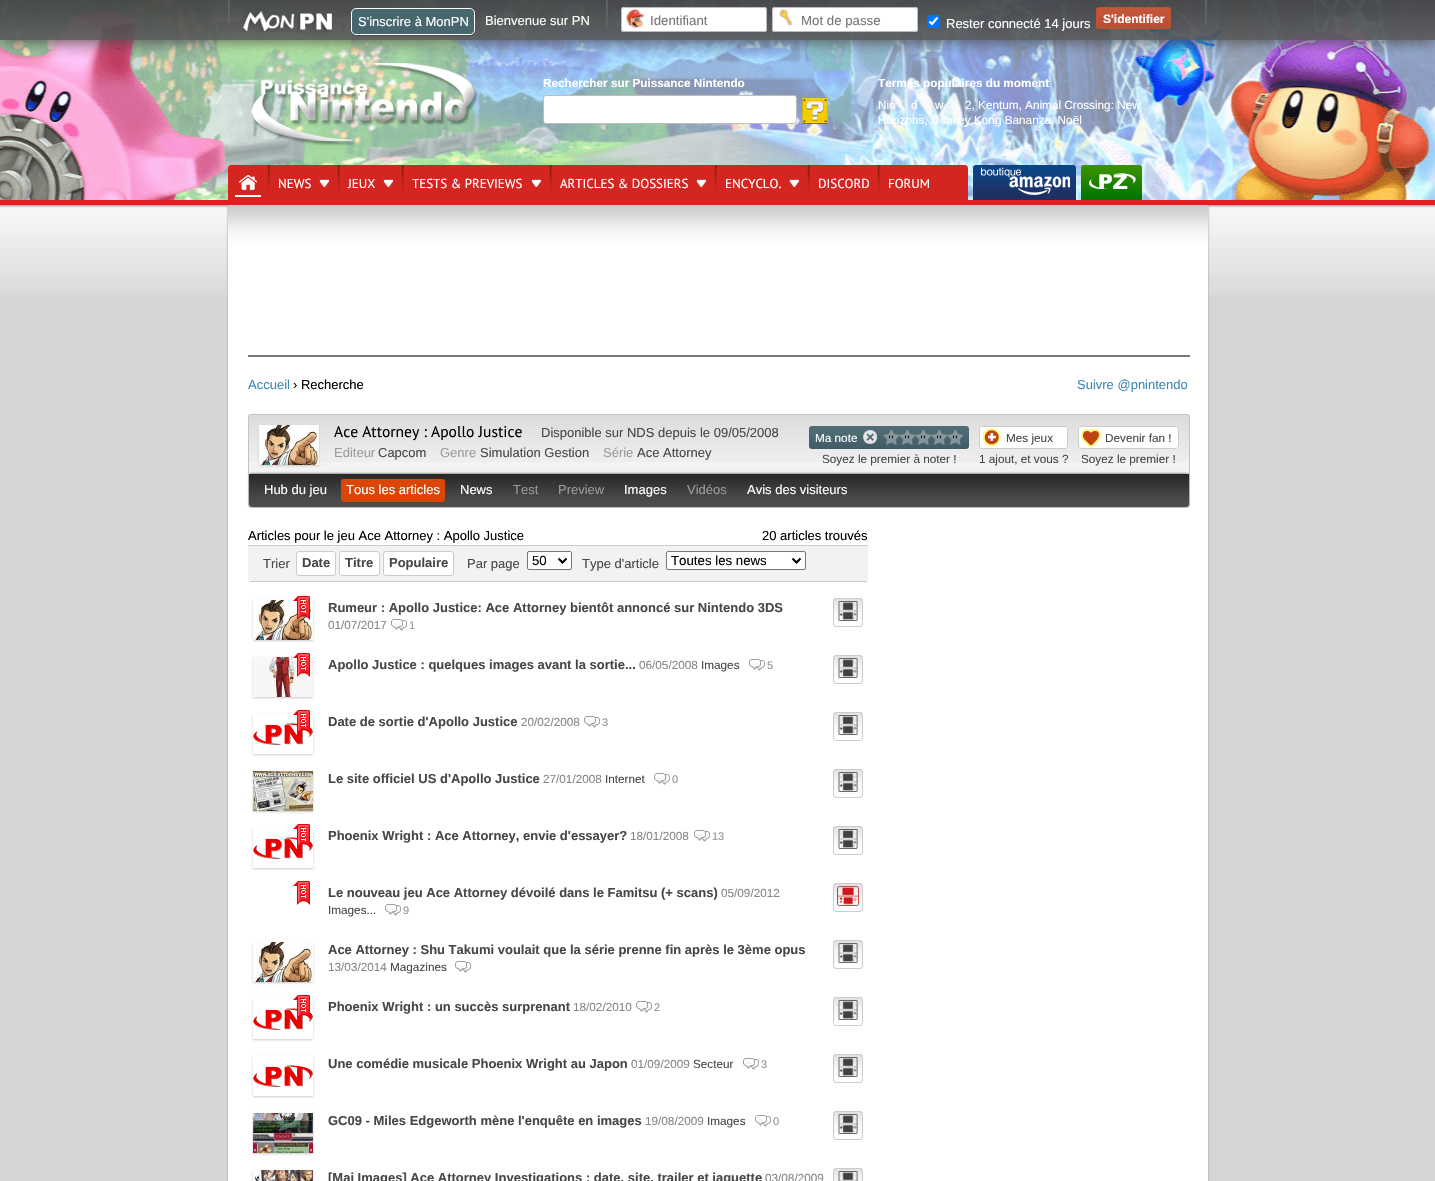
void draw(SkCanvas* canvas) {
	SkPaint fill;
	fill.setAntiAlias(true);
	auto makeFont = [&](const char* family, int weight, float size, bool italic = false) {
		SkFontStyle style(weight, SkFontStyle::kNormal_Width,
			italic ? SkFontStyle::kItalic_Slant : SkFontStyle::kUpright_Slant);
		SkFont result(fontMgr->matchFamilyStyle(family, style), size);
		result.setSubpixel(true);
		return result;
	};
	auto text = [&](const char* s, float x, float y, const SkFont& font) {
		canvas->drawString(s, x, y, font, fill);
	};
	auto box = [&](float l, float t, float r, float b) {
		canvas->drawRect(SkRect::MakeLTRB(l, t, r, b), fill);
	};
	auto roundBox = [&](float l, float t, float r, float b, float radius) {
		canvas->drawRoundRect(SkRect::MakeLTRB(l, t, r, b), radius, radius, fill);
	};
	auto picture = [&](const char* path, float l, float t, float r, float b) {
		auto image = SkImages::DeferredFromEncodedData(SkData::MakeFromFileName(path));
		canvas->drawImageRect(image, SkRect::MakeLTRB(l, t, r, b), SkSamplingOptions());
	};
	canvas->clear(0xFFD6D6D6);
	picture("image8.png", 0, 0, 1435, 200);
	picture("image9.png", 251, 63, 479, 146);
	canvas->save();
	canvas->clipRect(SkRect::MakeLTRB(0, 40, 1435, 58));
	fill.setColor(0xFF4A4A4A);
	fill.setMaskFilter(SkMaskFilter::MakeBlur(kNormal_SkBlurStyle, 8.5f));
	canvas->drawRect(SkRect::MakeLTRB(0, 1, 1435, 41), fill);
	fill.setMaskFilter(nullptr);
	canvas->restore();
	picture("image0.png", 0, 0, 1435, 40);
	picture("image1.png", 1205, 0, 1207, 28);
	picture("image2.png", 228, 0, 230, 27);
	picture("image3.png", 243, 11, 332, 33);
	fill.setColor(0xFF484848);
	fill.setMaskFilter(SkMaskFilter::MakeBlur(kNormal_SkBlurStyle, 1));
	canvas->drawRoundRect(SkRect::MakeLTRB(351, 9, 475, 36), 5, 5, fill);
	fill.setMaskFilter(nullptr);
	fill.setColor(0xFF47676E);
	canvas->drawRoundRect(SkRect::MakeLTRB(351.5f, 8.5f, 474.5f, 34.5f), 4.5f, 4.5f, fill);
	fill.setStyle(SkPaint::kStroke_Style);
	fill.setStrokeWidth(1);
	fill.setColor(0xFFFFFFFF);
	canvas->drawRoundRect(SkRect::MakeLTRB(351.5f, 8.5f, 474.5f, 34.5f), 4.5f, 4.5f, fill);
	picture("image4.png", 606, 0, 608, 28);
	fill.setStyle(SkPaint::kFill_Style);
	roundBox(621, 7, 767, 32, 3);
	picture("image5.png", 626, 9, 645, 28);
	fill.setStyle(SkPaint::kStroke_Style);
	fill.setColor(0xFFBDBDBD);
	canvas->drawRoundRect(SkRect::MakeLTRB(621.5f, 7.5f, 766.5f, 31.5f), 2.5f, 2.5f, fill);
	fill.setStyle(SkPaint::kFill_Style);
	fill.setColor(0xFFFFFFFF);
	roundBox(772, 7, 918, 32, 3);
	picture("image6.png", 779, 9, 793, 26);
	fill.setStyle(SkPaint::kStroke_Style);
	fill.setColor(0xFFBDBDBD);
	canvas->drawRoundRect(SkRect::MakeLTRB(772.5f, 7.5f, 917.5f, 31.5f), 2.5f, 2.5f, fill);
	fill.setStyle(SkPaint::kFill_Style);
	fill.setColor(0xFF0075FF);
	roundBox(927, 15, 940, 28, 2);
	fill.setStyle(SkPaint::kStroke_Style);
	fill.setStrokeWidth(2.1f);
	fill.setColor(0xFFFFFFFF);
	canvas->drawPath(SkPathBuilder().moveTo(929.5f, 21.5f).lineTo(932, 24).lineTo(937.5f, 17.5f).detach(), fill);
	picture("image7.png", 1096, 8, 1171, 29);
	fill.setStrokeWidth(1);
	fill.setColor(0xFFC1522A);
	canvas->drawRoundRect(SkRect::MakeLTRB(1096.5f, 7.5f, 1170.5f, 28.5f), 2.5f, 2.5f, fill);
	fill.setStyle(SkPaint::kFill_Style);
	fill.setColor(0xFFD42520);
	box(0, 200, 1435, 205);
	fill.setColor(0xFFFFFFFF);
	canvas->drawRoundRect(SkRect::MakeLTRB(543.5f, 95.5f, 796.5f, 123.5f), 2.5f, 2.5f, fill);
	fill.setStyle(SkPaint::kStroke_Style);
	fill.setColor(0xFFBDBDBD);
	canvas->drawRoundRect(SkRect::MakeLTRB(543.5f, 95.5f, 796.5f, 123.5f), 2.5f, 2.5f, fill);
	picture("image10.png", 802, 98, 828, 124);
	fill.setStyle(SkPaint::kFill_Style);
	fill.setColor(0xFFD42520);
	canvas->drawPath(SkPathBuilder().moveTo(231, 165).lineTo(965, 165).cubicTo(966.5f, 165, 968, 166.5f, 968, 168).lineTo(968, 200).lineTo(228, 200).lineTo(228, 168).cubicTo(228, 166.5f, 229.5f, 165, 231, 165).close().detach(), fill);
	picture("image11.png", 239, 175, 257, 190);
	fill.setColor(0xFFFFFFFF);
	box(235, 195, 261, 197);
	picture("image12.png", 267, 165, 271, 192);
	picture("image13.png", 319, 179, 329, 187);
	picture("image14.png", 337, 165, 340, 192);
	picture("image13.png", 383, 179, 393, 187);
	picture("image14.png", 401, 165, 404, 192);
	picture("image13.png", 531, 179, 541, 187);
	picture("image14.png", 549, 165, 552, 192);
	picture("image13.png", 696, 179, 706, 187);
	picture("image14.png", 714, 165, 717, 192);
	picture("image13.png", 789, 179, 799, 187);
	picture("image14.png", 807, 165, 810, 192);
	picture("image14.png", 877, 165, 880, 192);
	picture("image15.png", 973, 165, 1076, 200);
	picture("image16.png", 1081, 165, 1142, 200);
	picture("image17.png", 0, 205, 1435, 295);
	fill.setColor(0xFF949494);
	fill.setMaskFilter(SkMaskFilter::MakeBlur(kNormal_SkBlurStyle, 1));
	canvas->drawRect(SkRect::MakeLTRB(228, 206, 1208, 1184), fill);
	fill.setMaskFilter(nullptr);
	fill.setColor(0xFFFFFFFF);
	box(228, 241, 1208, 1181);
	picture("image18.png", 228, 205, 1208, 241);
	fill.setColor(0xFF7B7B7B);
	box(248, 355, 1190, 357);
	fill.setColor(0xFFF3F3F3);
	roundBox(248, 414, 1190, 508, 3);
	picture("image19.png", 248, 415, 1190, 462);
	fill.setStyle(SkPaint::kStroke_Style);
	fill.setColor(0xFFC3C3C3);
	canvas->drawRoundRect(SkRect::MakeLTRB(248.5f, 414.5f, 1189.5f, 507.5f), 2.5f, 2.5f, fill);
	fill.setStyle(SkPaint::kFill_Style);
	fill.setColor(0xFFCACACA);
	fill.setMaskFilter(SkMaskFilter::MakeBlur(kNormal_SkBlurStyle, 1));
	canvas->drawRect(SkRect::MakeLTRB(259, 426, 319, 466), fill);
	fill.setMaskFilter(nullptr);
	picture("image20.png", 259, 425, 319, 465);
	picture("image21.png", 809, 426, 969, 449);
	picture("image22.png", 863, 430, 877, 444);
	picture("image23.png", 883, 430, 891, 445);
	picture("image24.png", 891, 430, 899, 445);
	picture("image23.png", 899, 430, 907, 445);
	picture("image24.png", 907, 430, 915, 445);
	picture("image23.png", 915, 430, 923, 445);
	picture("image24.png", 923, 430, 931, 445);
	picture("image23.png", 931, 430, 939, 445);
	picture("image24.png", 939, 430, 947, 445);
	picture("image23.png", 947, 430, 955, 445);
	picture("image24.png", 955, 430, 963, 445);
	fill.setColor(0xFFFFFFFF);
	roundBox(979, 426, 1068, 449, 3);
	picture("image25.png", 982, 428, 1001, 447);
	fill.setStyle(SkPaint::kStroke_Style);
	fill.setColor(0xFFCCCCCC);
	canvas->drawRoundRect(SkRect::MakeLTRB(979.5f, 426.5f, 1067.5f, 448.5f), 2.5f, 2.5f, fill);
	fill.setStyle(SkPaint::kFill_Style);
	fill.setColor(0xFFFFFFFF);
	roundBox(1078, 426, 1179, 449, 3);
	picture("image26.png", 1081, 428, 1101, 448);
	fill.setStyle(SkPaint::kStroke_Style);
	fill.setColor(0xFFCCCCCC);
	canvas->drawRoundRect(SkRect::MakeLTRB(1078.5f, 426.5f, 1178.5f, 448.5f), 2.5f, 2.5f, fill);
	fill.setStyle(SkPaint::kFill_Style);
	fill.setColor(0xFF949494);
	fill.setMaskFilter(SkMaskFilter::MakeBlur(kNormal_SkBlurStyle, 1));
	canvas->drawRoundRect(SkRect::MakeLTRB(249, 473, 1189, 506), 3, 3, fill);
	fill.setMaskFilter(nullptr);
	picture("image27.png", 249, 474, 1189, 507);
	fill.setColor(0xFF474747);
	fill.setMaskFilter(SkMaskFilter::MakeBlur(kNormal_SkBlurStyle, 1));
	canvas->drawRoundRect(SkRect::MakeLTRB(341, 480, 445, 503), 3, 3, fill);
	fill.setMaskFilter(nullptr);
	fill.setColor(0xFFDB4505);
	roundBox(341, 479, 445, 502, 3);
	fill.setColor(0xFFF2F2F2);
	canvas->drawPath(SkPathBuilder().moveTo(248, 545).lineTo(868, 545).lineTo(868, 579).cubicTo(868, 580.5f, 866.5f, 582, 865, 582).lineTo(251, 582).cubicTo(249.5f, 582, 248, 580.5f, 248, 579).close().detach(), fill);
	fill.setColor(0xFFCCCCCC);
	box(248, 545, 868, 546);
	box(250, 581, 867, 582);
	fill.setColor(0xFFFFFFFF);
	canvas->drawRoundRect(SkRect::MakeLTRB(296.5f, 551.5f, 335.5f, 575.5f), 2.5f, 2.5f, fill);
	fill.setStyle(SkPaint::kStroke_Style);
	fill.setColor(0xFFCCCCCC);
	canvas->drawRoundRect(SkRect::MakeLTRB(296.5f, 551.5f, 335.5f, 575.5f), 2.5f, 2.5f, fill);
	fill.setStyle(SkPaint::kFill_Style);
	fill.setColor(0xFFFFFFFF);
	canvas->drawRoundRect(SkRect::MakeLTRB(339.5f, 551.5f, 379.5f, 575.5f), 2.5f, 2.5f, fill);
	fill.setStyle(SkPaint::kStroke_Style);
	fill.setColor(0xFFCCCCCC);
	canvas->drawRoundRect(SkRect::MakeLTRB(339.5f, 551.5f, 379.5f, 575.5f), 2.5f, 2.5f, fill);
	fill.setStyle(SkPaint::kFill_Style);
	fill.setColor(0xFFFFFFFF);
	canvas->drawRoundRect(SkRect::MakeLTRB(383.5f, 551.5f, 453.5f, 575.5f), 2.5f, 2.5f, fill);
	fill.setStyle(SkPaint::kStroke_Style);
	fill.setColor(0xFFCCCCCC);
	canvas->drawRoundRect(SkRect::MakeLTRB(383.5f, 551.5f, 453.5f, 575.5f), 2.5f, 2.5f, fill);
	fill.setStyle(SkPaint::kFill_Style);
	fill.setColor(0xFFFFFFFF);
	canvas->drawRoundRect(SkRect::MakeLTRB(527.5f, 551.5f, 571.5f, 569.5f), 1.5f, 1.5f, fill);
	fill.setStyle(SkPaint::kStroke_Style);
	fill.setColor(0xFF767676);
	canvas->drawRoundRect(SkRect::MakeLTRB(527.5f, 551.5f, 571.5f, 569.5f), 1.5f, 1.5f, fill);
	fill.setStrokeWidth(2);
	fill.setColor(0xFF000000);
	canvas->drawPath(SkPathBuilder().moveTo(558.5f, 558.5f).lineTo(562.5f, 562.5f).lineTo(566.5f, 558.5f).detach(), fill);
	fill.setStyle(SkPaint::kFill_Style);
	fill.setColor(0xFFFFFFFF);
	canvas->drawRoundRect(SkRect::MakeLTRB(666.5f, 551.5f, 805.5f, 569.5f), 1.5f, 1.5f, fill);
	fill.setStyle(SkPaint::kStroke_Style);
	fill.setStrokeWidth(1);
	fill.setColor(0xFF767676);
	canvas->drawRoundRect(SkRect::MakeLTRB(666.5f, 551.5f, 805.5f, 569.5f), 1.5f, 1.5f, fill);
	fill.setStrokeWidth(2);
	fill.setColor(0xFF000000);
	canvas->drawPath(SkPathBuilder().moveTo(792.5f, 558.5f).lineTo(796.5f, 562.5f).lineTo(800.5f, 558.5f).detach(), fill);
	fill.setStyle(SkPaint::kFill_Style);
	fill.setColor(0xFFCACACA);
	fill.setMaskFilter(SkMaskFilter::MakeBlur(kNormal_SkBlurStyle, 1));
	canvas->drawRect(SkRect::MakeLTRB(253, 601, 313, 641), fill);
	fill.setMaskFilter(nullptr);
	picture("image20.png", 253, 600, 313, 640);
	picture("image28.png", 293, 596, 310, 620);
	picture("image29.png", 833, 598, 863, 620);
	fill.setStyle(SkPaint::kStroke_Style);
	fill.setStrokeWidth(1);
	fill.setColor(0xFFCCCCCC);
	canvas->drawRoundRect(SkRect::MakeLTRB(833.5f, 598.5f, 862.5f, 626.5f), 2.5f, 2.5f, fill);
	picture("image30.png", 838, 601, 858, 621);
	picture("image31.png", 391, 619, 407, 631);
	fill.setStyle(SkPaint::kFill_Style);
	fill.setColor(0xFFCACACA);
	fill.setMaskFilter(SkMaskFilter::MakeBlur(kNormal_SkBlurStyle, 1));
	canvas->drawRect(SkRect::MakeLTRB(253, 658, 313, 698), fill);
	fill.setMaskFilter(nullptr);
	picture("image33.png", 253, 657, 313, 697);
	picture("image32.png", 293, 653, 310, 677);
	picture("image31.png", 749, 659, 765, 671);
	picture("image29.png", 833, 655, 863, 677);
	fill.setStyle(SkPaint::kStroke_Style);
	fill.setColor(0xFFCCCCCC);
	canvas->drawRoundRect(SkRect::MakeLTRB(833.5f, 655.5f, 862.5f, 683.5f), 2.5f, 2.5f, fill);
	picture("image30.png", 838, 658, 858, 678);
	canvas->save();
	canvas->clipPath(SkPathBuilder(SkPathFillType::kEvenOdd).moveTo(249, 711).lineTo(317, 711).lineTo(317, 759).lineTo(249, 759).close().moveTo(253, 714).lineTo(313, 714).lineTo(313, 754).lineTo(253, 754).close().detach(), true);
	fill.setStyle(SkPaint::kFill_Style);
	fill.setColor(0xFFCACACA);
	fill.setMaskFilter(SkMaskFilter::MakeBlur(kNormal_SkBlurStyle, 1));
	canvas->drawRect(SkRect::MakeLTRB(253, 715, 313, 755), fill);
	fill.setMaskFilter(nullptr);
	canvas->restore();
	picture("image35.png", 253, 723, 313, 745);
	picture("image34.png", 293, 710, 310, 734);
	picture("image31.png", 584, 716, 600, 728);
	picture("image29.png", 833, 712, 863, 734);
	fill.setStyle(SkPaint::kStroke_Style);
	fill.setColor(0xFFCCCCCC);
	canvas->drawRoundRect(SkRect::MakeLTRB(833.5f, 712.5f, 862.5f, 740.5f), 2.5f, 2.5f, fill);
	picture("image30.png", 838, 715, 858, 735);
	fill.setStyle(SkPaint::kFill_Style);
	fill.setColor(0xFFCACACA);
	fill.setMaskFilter(SkMaskFilter::MakeBlur(kNormal_SkBlurStyle, 1));
	canvas->drawRect(SkRect::MakeLTRB(253, 772, 313, 812), fill);
	fill.setMaskFilter(nullptr);
	picture("image36.png", 253, 771, 313, 811);
	picture("image37.png", 654, 773, 670, 785);
	picture("image29.png", 833, 769, 863, 791);
	fill.setStyle(SkPaint::kStroke_Style);
	fill.setColor(0xFFCCCCCC);
	canvas->drawRoundRect(SkRect::MakeLTRB(833.5f, 769.5f, 862.5f, 797.5f), 2.5f, 2.5f, fill);
	picture("image30.png", 838, 772, 858, 792);
	canvas->save();
	canvas->clipPath(SkPathBuilder(SkPathFillType::kEvenOdd).moveTo(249, 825).lineTo(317, 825).lineTo(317, 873).lineTo(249, 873).close().moveTo(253, 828).lineTo(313, 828).lineTo(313, 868).lineTo(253, 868).close().detach(), true);
	fill.setStyle(SkPaint::kFill_Style);
	fill.setColor(0xFFCACACA);
	fill.setMaskFilter(SkMaskFilter::MakeBlur(kNormal_SkBlurStyle, 1));
	canvas->drawRect(SkRect::MakeLTRB(253, 829, 313, 869), fill);
	fill.setMaskFilter(nullptr);
	canvas->restore();
	picture("image35.png", 253, 837, 313, 859);
	picture("image34.png", 293, 824, 310, 848);
	picture("image38.png", 694, 830, 710, 842);
	picture("image29.png", 833, 826, 863, 848);
	fill.setStyle(SkPaint::kStroke_Style);
	fill.setColor(0xFFCCCCCC);
	canvas->drawRoundRect(SkRect::MakeLTRB(833.5f, 826.5f, 862.5f, 854.5f), 2.5f, 2.5f, fill);
	picture("image30.png", 838, 829, 858, 849);
	picture("image39.png", 293, 881, 310, 905);
	picture("image29.png", 833, 883, 863, 905);
	canvas->drawRoundRect(SkRect::MakeLTRB(833.5f, 883.5f, 862.5f, 911.5f), 2.5f, 2.5f, fill);
	picture("image40.png", 837, 886, 859, 906);
	picture("image31.png", 385, 904, 401, 916);
	fill.setStyle(SkPaint::kFill_Style);
	fill.setColor(0xFFCACACA);
	fill.setMaskFilter(SkMaskFilter::MakeBlur(kNormal_SkBlurStyle, 1));
	canvas->drawRect(SkRect::MakeLTRB(253, 943, 313, 983), fill);
	fill.setMaskFilter(nullptr);
	picture("image20.png", 253, 942, 313, 982);
	picture("image29.png", 833, 940, 863, 962);
	fill.setStyle(SkPaint::kStroke_Style);
	fill.setColor(0xFFCCCCCC);
	canvas->drawRoundRect(SkRect::MakeLTRB(833.5f, 940.5f, 862.5f, 968.5f), 2.5f, 2.5f, fill);
	picture("image30.png", 838, 943, 858, 963);
	picture("image41.png", 455, 961, 471, 973);
	canvas->save();
	canvas->clipPath(SkPathBuilder(SkPathFillType::kEvenOdd).moveTo(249, 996).lineTo(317, 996).lineTo(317, 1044).lineTo(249, 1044).close().moveTo(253, 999).lineTo(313, 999).lineTo(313, 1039).lineTo(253, 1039).close().detach(), true);
	fill.setStyle(SkPaint::kFill_Style);
	fill.setColor(0xFFCACACA);
	fill.setMaskFilter(SkMaskFilter::MakeBlur(kNormal_SkBlurStyle, 1));
	canvas->drawRect(SkRect::MakeLTRB(253, 1000, 313, 1040), fill);
	fill.setMaskFilter(nullptr);
	canvas->restore();
	picture("image35.png", 253, 1008, 313, 1030);
	picture("image34.png", 293, 995, 310, 1019);
	picture("image37.png", 636, 1001, 652, 1013);
	picture("image29.png", 833, 997, 863, 1019);
	fill.setStyle(SkPaint::kStroke_Style);
	fill.setColor(0xFFCCCCCC);
	canvas->drawRoundRect(SkRect::MakeLTRB(833.5f, 997.5f, 862.5f, 1025.5f), 2.5f, 2.5f, fill);
	picture("image30.png", 838, 1000, 858, 1020);
	canvas->save();
	canvas->clipPath(SkPathBuilder(SkPathFillType::kEvenOdd).moveTo(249, 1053).lineTo(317, 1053).lineTo(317, 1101).lineTo(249, 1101).close().moveTo(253, 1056).lineTo(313, 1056).lineTo(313, 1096).lineTo(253, 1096).close().detach(), true);
	fill.setStyle(SkPaint::kFill_Style);
	fill.setColor(0xFFCACACA);
	fill.setMaskFilter(SkMaskFilter::MakeBlur(kNormal_SkBlurStyle, 1));
	canvas->drawRect(SkRect::MakeLTRB(253, 1057, 313, 1097), fill);
	fill.setMaskFilter(nullptr);
	canvas->restore();
	picture("image35.png", 253, 1065, 313, 1087);
	picture("image31.png", 743, 1058, 759, 1070);
	picture("image29.png", 833, 1054, 863, 1076);
	fill.setStyle(SkPaint::kStroke_Style);
	fill.setColor(0xFFCCCCCC);
	canvas->drawRoundRect(SkRect::MakeLTRB(833.5f, 1054.5f, 862.5f, 1082.5f), 2.5f, 2.5f, fill);
	picture("image30.png", 838, 1057, 858, 1077);
	fill.setStyle(SkPaint::kFill_Style);
	fill.setColor(0xFFCACACA);
	fill.setMaskFilter(SkMaskFilter::MakeBlur(kNormal_SkBlurStyle, 1));
	canvas->drawRect(SkRect::MakeLTRB(253, 1114, 313, 1154), fill);
	fill.setMaskFilter(nullptr);
	picture("image42.png", 253, 1113, 313, 1153);
	picture("image37.png", 755, 1115, 771, 1127);
	picture("image29.png", 833, 1111, 863, 1133);
	fill.setStyle(SkPaint::kStroke_Style);
	fill.setColor(0xFFCCCCCC);
	canvas->drawRoundRect(SkRect::MakeLTRB(833.5f, 1111.5f, 862.5f, 1139.5f), 2.5f, 2.5f, fill);
	picture("image30.png", 838, 1114, 858, 1134);
	fill.setStyle(SkPaint::kFill_Style);
	fill.setColor(0xFFCACACA);
	fill.setMaskFilter(SkMaskFilter::MakeBlur(kNormal_SkBlurStyle, 1));
	canvas->drawRect(SkRect::MakeLTRB(253, 1171, 313, 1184), fill);
	fill.setMaskFilter(nullptr);
	picture("image43.png", 253, 1170, 313, 1181);
	picture("image44.png", 833, 1168, 863, 1181);
	fill.setStyle(SkPaint::kStroke_Style);
	fill.setColor(0xFFCCCCCC);
	canvas->drawRoundRect(SkRect::MakeLTRB(833.5f, 1168.5f, 862.5f, 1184.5f), 2.5f, 2.5f, fill);
	picture("image45.png", 838, 1171, 858, 1181);
	auto font1 = makeFont("Liberation Sans", 400, 13);
	fill.setStyle(SkPaint::kFill_Style);
	fill.setColor(0xFFFFFFFF);
	text("S'inscrire à MonPN", 358, 26, font1);
	text("Bienvenue sur PN", 485, 25, font1);
	auto font2 = makeFont("Liberation Sans", 400, 13.25f);
	fill.setColor(0xFF757575);
	text("Identifiant", 650, 25, font2);
	text("Mot de passe", 801, 25, font2);
	fill.setColor(0xFFFFFFFF);
	text("Rester connecté 14 jours", 946, 28, font1);
	auto font3 = makeFont("Liberation Sans", 700, 12);
	text("S'identifier", 1103, 23, font3);
	auto font4 = makeFont("Liberation Sans", 700, 11.75f);
	text("Rechercher sur Puissance Nintendo", 543, 87, font4);
	text("Termes populaires du moment", 878, 87, font4);
	auto font5 = makeFont("Liberation Sans", 400, 11.75f);
	text("Nin", 878, 109, font5);
	text("d", 911, 109, font5);
	text("w", 935, 109, font5);
	text("2, Kentum, Animal Crossing: New", 965, 109, font5);
	text("Horizons, Donkey Kong Bananza, Noël", 878, 124, font5);
	auto font6 = makeFont("PT Sans", 400, 13);
	text("NEWS", 278, 188, font6);
	text("JEUX", 348, 188, font6);
	text("TESTS & PREVIEWS", 412, 188, font6);
	text("ARTICLES & DOSSIERS", 560, 188, font6);
	text("ENCYCLO.", 725, 188, font6);
	text("DISCORD", 818, 188, font6);
	text("FORUM", 888, 188, font6);
	fill.setColor(0xFF3D88B2);
	text("Accueil", 248, 389, font1);
	fill.setColor(0xFF000000);
	text("› Recherche", 293, 389, font1);
	fill.setColor(0xFF3D88B2);
	text("Suivre @pnintendo", 1077, 389, font1);
	auto font7 = makeFont("PT Sans", 400, 15.6f);
	fill.setColor(0xFF000000);
	text("Ace Attorney : Apollo Justice", 334, 437, font7);
	fill.setColor(0xFF474747);
	text("Disponible sur NDS depuis le 09/05/2008", 541, 437, font1);
	fill.setColor(0xFFFFFFFF);
	text("Ma note", 815, 442, font5);
	fill.setColor(0xFF474747);
	text("Soyez le premier à noter !", 822, 463, font5);
	text("Mes jeux", 1006, 442, font5);
	text("1 ajout, et vous ?", 979, 463, font5);
	text("Devenir fan !", 1105, 442, font5);
	text("Soyez le premier !", 1081, 463, font5);
	fill.setColor(0xFF9B9B9B);
	text("Editeur", 334, 457, font1);
	fill.setColor(0xFF474747);
	text("Capcom", 378, 457, font1);
	fill.setColor(0xFF9B9B9B);
	text("Genre", 440, 457, font1);
	fill.setColor(0xFF474747);
	text("Simulation Gestion", 480, 457, font1);
	fill.setColor(0xFF9B9B9B);
	text("Série", 603, 457, font1);
	fill.setColor(0xFF474747);
	text("Ace Attorney", 637, 457, font1);
	fill.setColor(0xFFFFFFFF);
	text("Hub du jeu", 264, 494, font1);
	text("Tous les articles", 346, 494, font1);
	text("News", 460, 494, font1);
	fill.setColor(0xFF9B9B9B);
	text("Test", 513, 494, font1);
	text("Preview", 558, 494, font1);
	fill.setColor(0xFFFFFFFF);
	text("Images", 624, 494, font1);
	fill.setColor(0xFF9B9B9B);
	text("Vidéos", 687, 494, font1);
	fill.setColor(0xFFFFFFFF);
	text("Avis des visiteurs", 747, 494, font1);
	fill.setColor(0xFF000000);
	text("Articles pour le jeu Ace Attorney : Apollo Justice", 248, 540, font1);
	text("20 articles trouvés", 762, 540, font1);
	fill.setColor(0xFF474747);
	text("Trier", 263, 568, font1);
	auto font8 = makeFont("Liberation Sans", 700, 13);
	text("Date", 302, 567, font8);
	text("Titre", 345, 567, font8);
	text("Populaire", 389, 567, font8);
	text("Par page", 467, 568, font1);
	fill.setColor(0xFF000000);
	text("50", 532, 565, font2);
	fill.setColor(0xFF474747);
	text("Type d'article", 582, 568, font1);
	fill.setColor(0xFF000000);
	text("Toutes les news", 671, 565, font2);
	fill.setColor(0xFF474747);
	text("Rumeur : Apollo Justice: Ace Attorney bientôt annoncé sur Nintendo 3DS", 328, 612, font8);
	fill.setColor(0xFF888888);
	text("01/07/2017", 328, 629, font5);
	auto font9 = makeFont("Liberation Sans", 400, 11);
	fill.setColor(0xFF919191);
	text("1", 409, 629, font9);
	fill.setColor(0xFF474747);
	text("Apollo Justice : quelques images avant la sortie...", 328, 669, font8);
	fill.setColor(0xFF888888);
	text("06/05/2008", 639, 669, font5);
	fill.setColor(0xFF474747);
	text("Images", 701, 669, font5);
	fill.setColor(0xFF919191);
	text("5", 767, 669, font9);
	fill.setColor(0xFF474747);
	text("Date de sortie d'Apollo Justice", 328, 726, font8);
	fill.setColor(0xFF888888);
	text("20/02/2008", 521, 726, font5);
	fill.setColor(0xFF919191);
	text("3", 602, 726, font9);
	fill.setColor(0xFF474747);
	text("Le site officiel US d'Apollo Justice", 328, 783, font8);
	fill.setColor(0xFF888888);
	text("27/01/2008", 543, 783, font5);
	fill.setColor(0xFF474747);
	text("Internet", 605, 783, font5);
	fill.setColor(0xFF919191);
	text("0", 672, 783, font9);
	fill.setColor(0xFF474747);
	text("Phoenix Wright : Ace Attorney, envie d'essayer?", 328, 840, font8);
	fill.setColor(0xFF888888);
	text("18/01/2008", 630, 840, font5);
	fill.setColor(0xFF919191);
	text("13", 712, 840, font9);
	fill.setColor(0xFF474747);
	text("Le nouveau jeu Ace Attorney dévoilé dans le Famitsu (+ scans)", 328, 897, font8);
	fill.setColor(0xFF888888);
	text("05/09/2012", 721, 897, font5);
	fill.setColor(0xFF474747);
	text("Images...", 328, 914, font5);
	fill.setColor(0xFF919191);
	text("9", 403, 914, font9);
	fill.setColor(0xFF474747);
	text("Ace Attorney : Shu Takumi voulait que la série prenne fin après le 3ème opus", 328, 954, font8);
	fill.setColor(0xFF888888);
	text("13/03/2014", 328, 971, font5);
	fill.setColor(0xFF474747);
	text("Magazines", 390, 971, font5);
	text("Phoenix Wright : un succès surprenant", 328, 1011, font8);
	fill.setColor(0xFF888888);
	text("18/02/2010", 573, 1011, font5);
	fill.setColor(0xFF919191);
	text("2", 654, 1011, font9);
	fill.setColor(0xFF474747);
	text("Une comédie musicale Phoenix Wright au Japon", 328, 1068, font8);
	fill.setColor(0xFF888888);
	text("01/09/2009", 631, 1068, font5);
	fill.setColor(0xFF474747);
	text("Secteur", 693, 1068, font5);
	fill.setColor(0xFF919191);
	text("3", 761, 1068, font9);
	fill.setColor(0xFF474747);
	text("GC09 - Miles Edgeworth mène l'enquête en images", 328, 1125, font8);
	fill.setColor(0xFF888888);
	text("19/08/2009", 645, 1125, font5);
	fill.setColor(0xFF474747);
	text("Images", 707, 1125, font5);
	fill.setColor(0xFF919191);
	text("0", 773, 1125, font9);
	fill.setColor(0xFF474747);
	text("[Maj Images] Ace Attorney Investigations : date, site, trailer et jaquette", 328, 1182, font8);
	fill.setColor(0xFF888888);
	text("03/08/2009", 765, 1182, font5);
}
